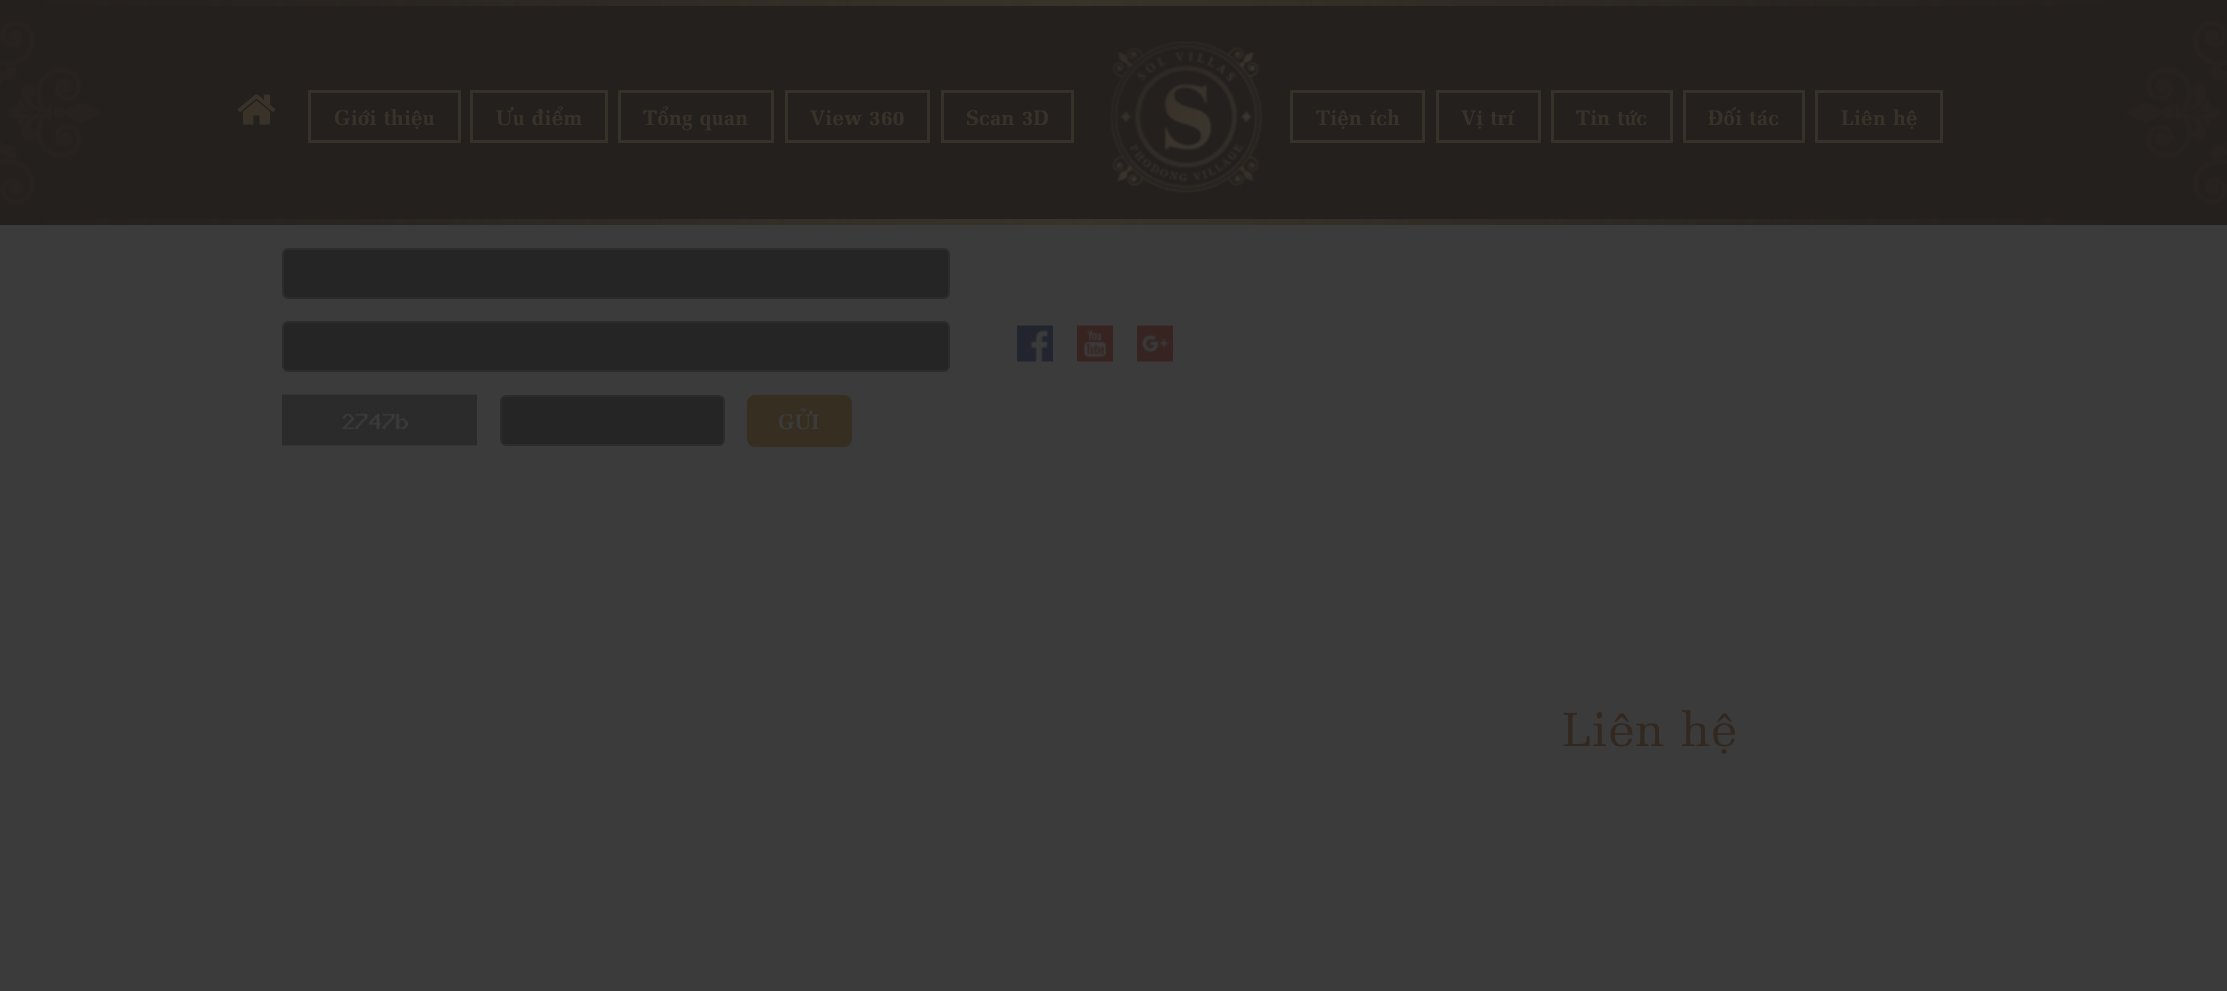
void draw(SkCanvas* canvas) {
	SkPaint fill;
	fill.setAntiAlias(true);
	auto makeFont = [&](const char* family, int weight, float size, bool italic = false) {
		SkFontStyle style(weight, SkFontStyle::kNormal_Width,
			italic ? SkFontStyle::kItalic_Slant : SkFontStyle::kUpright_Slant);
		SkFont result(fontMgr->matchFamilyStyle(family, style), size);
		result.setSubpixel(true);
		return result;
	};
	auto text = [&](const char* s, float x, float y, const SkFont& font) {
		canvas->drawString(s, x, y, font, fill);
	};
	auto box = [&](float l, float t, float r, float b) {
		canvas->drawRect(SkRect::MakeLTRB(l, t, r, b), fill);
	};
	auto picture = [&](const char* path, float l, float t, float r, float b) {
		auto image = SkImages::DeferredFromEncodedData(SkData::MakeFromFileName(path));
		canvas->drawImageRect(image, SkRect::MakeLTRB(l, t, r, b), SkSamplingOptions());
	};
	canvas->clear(0xFF3B3B3B);
	fill.setColor(0xFF24201E);
	box(0, 0, 2227, 225);
	picture("image0.png", 45, 0, 2104, 6);
	picture("image1.png", 0, 20, 102, 205);
	picture("image2.png", 1110, 38, 1268, 197);
	picture("image3.png", 237, 94, 276, 125);
	fill.setStyle(SkPaint::kStroke_Style);
	fill.setStrokeWidth(3);
	fill.setColor(0xFF373229);
	canvas->drawRect(SkRect::MakeLTRB(309.5f, 91.5f, 459.5f, 141.5f), fill);
	canvas->drawRect(SkRect::MakeLTRB(471.5f, 91.5f, 606.5f, 141.5f), fill);
	canvas->drawRect(SkRect::MakeLTRB(619.5f, 91.5f, 772.5f, 141.5f), fill);
	canvas->drawRect(SkRect::MakeLTRB(786.5f, 91.5f, 928.5f, 141.5f), fill);
	canvas->drawRect(SkRect::MakeLTRB(942.5f, 91.5f, 1072.5f, 141.5f), fill);
	canvas->drawRect(SkRect::MakeLTRB(1291.5f, 91.5f, 1423.5f, 141.5f), fill);
	canvas->drawRect(SkRect::MakeLTRB(1437.5f, 91.5f, 1539.5f, 141.5f), fill);
	canvas->drawRect(SkRect::MakeLTRB(1552.5f, 91.5f, 1671.5f, 141.5f), fill);
	canvas->drawRect(SkRect::MakeLTRB(1684.5f, 91.5f, 1803.5f, 141.5f), fill);
	canvas->drawRect(SkRect::MakeLTRB(1816.5f, 91.5f, 1941.5f, 141.5f), fill);
	picture("image4.png", 2125, 20, 2227, 205);
	picture("image0.png", 45, 219, 2104, 225);
	picture("image5.png", 1017, 325, 1053, 362);
	picture("image6.png", 1077, 325, 1113, 362);
	picture("image7.png", 1137, 325, 1173, 362);
	fill.setStyle(SkPaint::kFill_Style);
	fill.setColor(0xFF252526);
	canvas->drawRoundRect(SkRect::MakeLTRB(283, 249, 949, 298), 5, 5, fill);
	fill.setStyle(SkPaint::kStroke_Style);
	fill.setStrokeWidth(2);
	fill.setColor(0xFF2C2C2C);
	canvas->drawRoundRect(SkRect::MakeLTRB(283, 249, 949, 298), 5, 5, fill);
	fill.setStyle(SkPaint::kFill_Style);
	fill.setColor(0xFF252526);
	canvas->drawRoundRect(SkRect::MakeLTRB(283, 322, 949, 371), 5, 5, fill);
	fill.setStyle(SkPaint::kStroke_Style);
	fill.setColor(0xFF2C2C2C);
	canvas->drawRoundRect(SkRect::MakeLTRB(283, 322, 949, 371), 5, 5, fill);
	picture("image8.png", 282, 394, 477, 446);
	fill.setStyle(SkPaint::kFill_Style);
	fill.setColor(0xFF252526);
	canvas->drawRoundRect(SkRect::MakeLTRB(501, 396, 724, 445), 5, 5, fill);
	fill.setStyle(SkPaint::kStroke_Style);
	fill.setColor(0xFF2C2C2C);
	canvas->drawRoundRect(SkRect::MakeLTRB(501, 396, 724, 445), 5, 5, fill);
	fill.setStyle(SkPaint::kFill_Style);
	fill.setColor(0xFF362E20);
	canvas->drawRoundRect(SkRect::MakeLTRB(748, 396, 851, 446), 7, 7, fill);
	fill.setStyle(SkPaint::kStroke_Style);
	canvas->drawRoundRect(SkRect::MakeLTRB(748, 396, 851, 446), 7, 7, fill);
	auto font1 = makeFont("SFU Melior", 700, 21);
	fill.setStyle(SkPaint::kFill_Style);
	fill.setColor(0xFF383229);
	text("Giới thiệu", 334, 125, font1);
	text("Ưu điểm", 496, 125, font1);
	text("Tổng quan", 643, 125, font1);
	text("View 360", 810, 125, font1);
	text("Scan 3D", 966, 125, font1);
	text("Tiện ích", 1316, 125, font1);
	text("Vị trí", 1461, 125, font1);
	text("Tin tức", 1576, 125, font1);
	text("Đối tác", 1708, 125, font1);
	text("Liên hệ", 1841, 125, font1);
	fill.setColor(0xFF3B3B3B);
	text("GỬI", 778, 429, font1);
	auto font2 = makeFont("SFU Melior", 400, 48);
	fill.setColor(0xFF32281F);
	text("Liên hệ", 1562, 746, font2);
}
